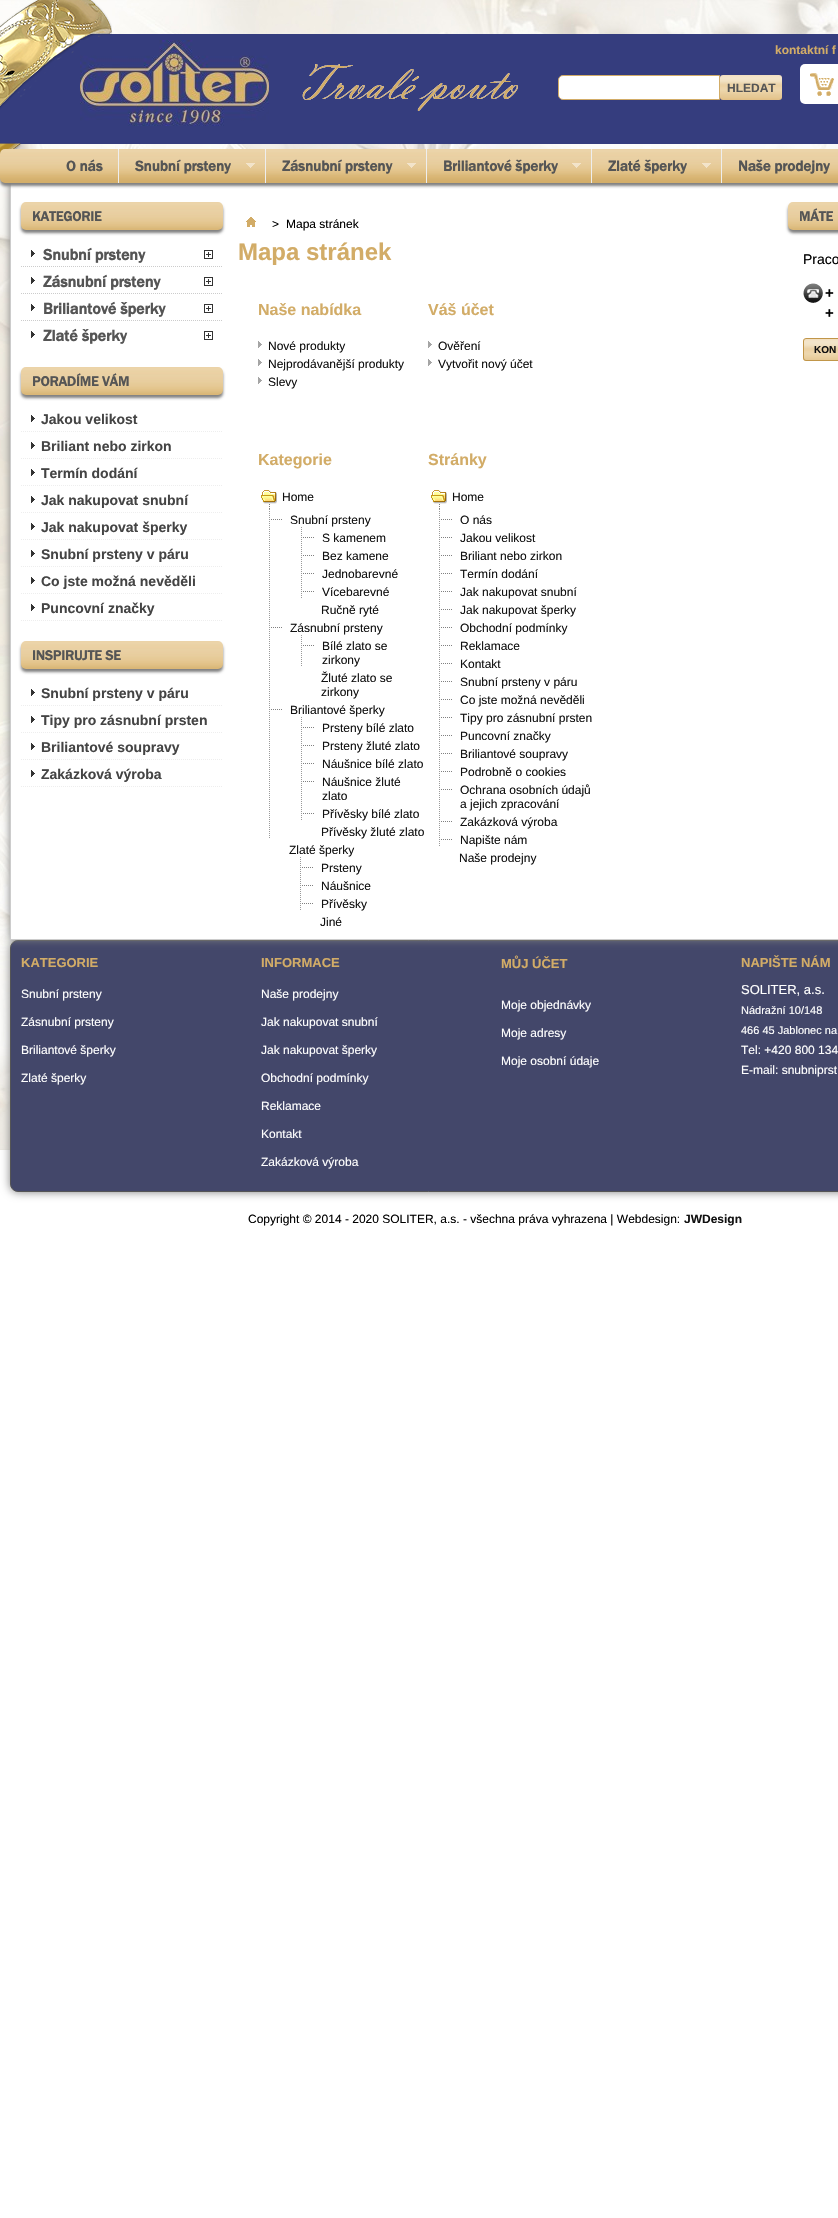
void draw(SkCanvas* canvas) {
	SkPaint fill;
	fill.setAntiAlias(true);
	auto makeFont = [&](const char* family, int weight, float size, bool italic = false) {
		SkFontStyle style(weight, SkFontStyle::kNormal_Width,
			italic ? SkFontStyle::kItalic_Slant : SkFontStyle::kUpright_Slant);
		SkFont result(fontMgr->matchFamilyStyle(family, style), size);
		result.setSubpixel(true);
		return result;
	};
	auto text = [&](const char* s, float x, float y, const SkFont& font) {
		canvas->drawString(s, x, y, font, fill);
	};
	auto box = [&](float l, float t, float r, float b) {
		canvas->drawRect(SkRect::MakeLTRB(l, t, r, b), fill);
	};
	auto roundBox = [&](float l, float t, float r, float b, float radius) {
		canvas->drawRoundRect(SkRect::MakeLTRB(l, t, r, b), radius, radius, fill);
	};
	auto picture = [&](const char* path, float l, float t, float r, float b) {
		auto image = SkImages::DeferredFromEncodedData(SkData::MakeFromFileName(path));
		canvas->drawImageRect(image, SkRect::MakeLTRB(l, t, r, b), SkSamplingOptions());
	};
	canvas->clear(0xFFFFFFFF);
	picture("image0.png", 0, 0, 838, 1150);
	fill.setColor(0xFF353D7E);
	box(0, 34, 838, 144);
	picture("image1.png", 0, 0, 112, 154);
	picture("image2.png", 80, 40, 269, 126);
	fill.setColor(0xFFFFFFFF);
	canvas->drawPath(SkPathBuilder().moveTo(563, 75.5f).lineTo(719.5f, 75.5f).lineTo(719.5f, 99.5f).lineTo(563, 99.5f).cubicTo(560.5f, 99.5f, 558.5f, 97.5f, 558.5f, 95).lineTo(558.5f, 80).cubicTo(558.5f, 77.5f, 560.5f, 75.5f, 563, 75.5f).close().detach(), fill);
	fill.setStyle(SkPaint::kStroke_Style);
	fill.setStrokeWidth(1);
	fill.setColor(0xFFD2AC67);
	canvas->drawPath(SkPathBuilder().moveTo(563, 75.5f).lineTo(719.5f, 75.5f).lineTo(719.5f, 99.5f).lineTo(563, 99.5f).cubicTo(560.5f, 99.5f, 558.5f, 97.5f, 558.5f, 95).lineTo(558.5f, 80).cubicTo(558.5f, 77.5f, 560.5f, 75.5f, 563, 75.5f).close().detach(), fill);
	picture("image3.png", 720, 75, 782, 100);
	fill.setStyle(SkPaint::kFill_Style);
	fill.setColor(0xFFFFFFFF);
	roundBox(800, 64, 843, 104, 5);
	picture("image4.png", 810, 73, 834, 96);
	fill.setColor(0xFF808080);
	fill.setMaskFilter(SkMaskFilter::MakeBlur(kNormal_SkBlurStyle, 5));
	canvas->drawRoundRect(SkRect::MakeLTRB(10, 940, 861, 1192), 8, 8, fill);
	fill.setMaskFilter(nullptr);
	fill.setColor(0xFF43476A);
	canvas->drawRoundRect(SkRect::MakeLTRB(10.5f, 940.5f, 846.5f, 1191.5f), 7.5f, 7.5f, fill);
	fill.setStyle(SkPaint::kStroke_Style);
	fill.setColor(0xFF555555);
	canvas->drawRoundRect(SkRect::MakeLTRB(10.5f, 940.5f, 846.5f, 1191.5f), 7.5f, 7.5f, fill);
	fill.setStyle(SkPaint::kFill_Style);
	fill.setColor(0xFF808080);
	fill.setMaskFilter(SkMaskFilter::MakeBlur(kNormal_SkBlurStyle, 4));
	canvas->drawRect(SkRect::MakeLTRB(10, 176, 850, 940), fill);
	fill.setMaskFilter(nullptr);
	fill.setColor(0xFFFFFFFF);
	box(11, 183, 838, 939);
	fill.setStyle(SkPaint::kStroke_Style);
	fill.setColor(0xFFCCCCCC);
	canvas->drawRect(SkRect::MakeLTRB(10.5f, 176.5f, 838.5f, 939.5f), fill);
	fill.setStyle(SkPaint::kFill_Style);
	fill.setColor(0xFF808080);
	fill.setMaskFilter(SkMaskFilter::MakeBlur(kNormal_SkBlurStyle, 1.5f));
	canvas->drawRoundRect(SkRect::MakeLTRB(0, 152, 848, 186), 5, 5, fill);
	fill.setMaskFilter(nullptr);
	picture("image5.png", 0, 149, 838, 183);
	fill.setColor(0xFFEEEEEE);
	box(118, 149, 119, 183);
	box(265, 149, 266, 183);
	picture("image6.png", 246, 163, 255, 168);
	box(426, 149, 427, 183);
	picture("image6.png", 407, 163, 416, 168);
	box(591, 149, 592, 183);
	picture("image6.png", 572, 163, 581, 168);
	box(721, 149, 722, 183);
	picture("image6.png", 702, 163, 711, 168);
	picture("image7.png", 302, 64, 518, 111);
	fill.setColor(0xFF808080);
	fill.setMaskFilter(SkMaskFilter::MakeBlur(kNormal_SkBlurStyle, 1.5f));
	canvas->drawRoundRect(SkRect::MakeLTRB(21, 205, 223, 233), 5, 5, fill);
	fill.setMaskFilter(nullptr);
	picture("image8.png", 21, 202, 223, 230);
	fill.setStyle(SkPaint::kStroke_Style);
	fill.setColor(0xFFCCCCCC);
	fill.setPathEffect(SkDashPathEffect::Make({{1, 1}}, 0));
	canvas->drawPath(SkPathBuilder().moveTo(21, 266.5f).lineTo(223, 266.5f).detach(), fill);
	fill.setPathEffect(nullptr);
	picture("image9.png", 31, 250, 35, 257);
	picture("image10.png", 204, 250, 213, 259);
	fill.setPathEffect(SkDashPathEffect::Make({{1, 1}}, 0));
	canvas->drawPath(SkPathBuilder().moveTo(21, 293.5f).lineTo(223, 293.5f).detach(), fill);
	fill.setPathEffect(nullptr);
	picture("image9.png", 31, 277, 35, 284);
	picture("image10.png", 204, 277, 213, 286);
	fill.setPathEffect(SkDashPathEffect::Make({{1, 1}}, 0));
	canvas->drawPath(SkPathBuilder().moveTo(21, 320.5f).lineTo(223, 320.5f).detach(), fill);
	fill.setPathEffect(nullptr);
	picture("image9.png", 31, 304, 35, 311);
	picture("image10.png", 204, 304, 213, 313);
	picture("image9.png", 31, 331, 35, 338);
	picture("image10.png", 204, 331, 213, 340);
	fill.setStyle(SkPaint::kFill_Style);
	fill.setColor(0xFF808080);
	fill.setMaskFilter(SkMaskFilter::MakeBlur(kNormal_SkBlurStyle, 1.5f));
	canvas->drawRoundRect(SkRect::MakeLTRB(21, 370, 223, 398), 5, 5, fill);
	fill.setMaskFilter(nullptr);
	picture("image8.png", 21, 367, 223, 395);
	fill.setStyle(SkPaint::kStroke_Style);
	fill.setColor(0xFFEEEEEE);
	fill.setPathEffect(SkDashPathEffect::Make({{1, 1}}, 0));
	canvas->drawPath(SkPathBuilder().moveTo(21, 431.5f).lineTo(223, 431.5f).detach(), fill);
	fill.setPathEffect(nullptr);
	picture("image9.png", 31, 415, 35, 422);
	fill.setPathEffect(SkDashPathEffect::Make({{1, 1}}, 0));
	canvas->drawPath(SkPathBuilder().moveTo(21, 458.5f).lineTo(223, 458.5f).detach(), fill);
	fill.setPathEffect(nullptr);
	picture("image9.png", 31, 442, 35, 449);
	fill.setPathEffect(SkDashPathEffect::Make({{1, 1}}, 0));
	canvas->drawPath(SkPathBuilder().moveTo(21, 485.5f).lineTo(223, 485.5f).detach(), fill);
	fill.setPathEffect(nullptr);
	picture("image9.png", 31, 469, 35, 476);
	fill.setPathEffect(SkDashPathEffect::Make({{1, 1}}, 0));
	canvas->drawPath(SkPathBuilder().moveTo(21, 512.5f).lineTo(223, 512.5f).detach(), fill);
	fill.setPathEffect(nullptr);
	picture("image9.png", 31, 496, 35, 503);
	fill.setPathEffect(SkDashPathEffect::Make({{1, 1}}, 0));
	canvas->drawPath(SkPathBuilder().moveTo(21, 539.5f).lineTo(223, 539.5f).detach(), fill);
	fill.setPathEffect(nullptr);
	picture("image9.png", 31, 523, 35, 530);
	fill.setPathEffect(SkDashPathEffect::Make({{1, 1}}, 0));
	canvas->drawPath(SkPathBuilder().moveTo(21, 566.5f).lineTo(223, 566.5f).detach(), fill);
	fill.setPathEffect(nullptr);
	picture("image9.png", 31, 550, 35, 557);
	fill.setPathEffect(SkDashPathEffect::Make({{1, 1}}, 0));
	canvas->drawPath(SkPathBuilder().moveTo(21, 593.5f).lineTo(223, 593.5f).detach(), fill);
	fill.setPathEffect(nullptr);
	picture("image9.png", 31, 577, 35, 584);
	fill.setPathEffect(SkDashPathEffect::Make({{1, 1}}, 0));
	canvas->drawPath(SkPathBuilder().moveTo(21, 620.5f).lineTo(223, 620.5f).detach(), fill);
	fill.setPathEffect(nullptr);
	picture("image9.png", 31, 604, 35, 611);
	fill.setStyle(SkPaint::kFill_Style);
	fill.setColor(0xFF808080);
	fill.setMaskFilter(SkMaskFilter::MakeBlur(kNormal_SkBlurStyle, 1.5f));
	canvas->drawRoundRect(SkRect::MakeLTRB(21, 644, 223, 672), 5, 5, fill);
	fill.setMaskFilter(nullptr);
	picture("image8.png", 21, 641, 223, 669);
	fill.setStyle(SkPaint::kStroke_Style);
	fill.setColor(0xFFEEEEEE);
	fill.setPathEffect(SkDashPathEffect::Make({{1, 1}}, 0));
	canvas->drawPath(SkPathBuilder().moveTo(21, 705.5f).lineTo(223, 705.5f).detach(), fill);
	fill.setPathEffect(nullptr);
	picture("image9.png", 31, 689, 35, 696);
	fill.setPathEffect(SkDashPathEffect::Make({{1, 1}}, 0));
	canvas->drawPath(SkPathBuilder().moveTo(21, 732.5f).lineTo(223, 732.5f).detach(), fill);
	fill.setPathEffect(nullptr);
	picture("image9.png", 31, 716, 35, 723);
	fill.setPathEffect(SkDashPathEffect::Make({{1, 1}}, 0));
	canvas->drawPath(SkPathBuilder().moveTo(21, 759.5f).lineTo(223, 759.5f).detach(), fill);
	fill.setPathEffect(nullptr);
	picture("image9.png", 31, 743, 35, 750);
	fill.setPathEffect(SkDashPathEffect::Make({{1, 1}}, 0));
	canvas->drawPath(SkPathBuilder().moveTo(21, 786.5f).lineTo(223, 786.5f).detach(), fill);
	fill.setPathEffect(nullptr);
	picture("image9.png", 31, 770, 35, 777);
	picture("image11.png", 246, 217, 256, 227);
	picture("image12.png", 258, 341, 262, 348);
	picture("image12.png", 258, 359, 262, 366);
	picture("image12.png", 258, 377, 262, 384);
	picture("image12.png", 428, 341, 432, 348);
	picture("image12.png", 428, 359, 432, 366);
	picture("image13.png", 261, 490, 277, 509);
	picture("image14.png", 271, 519, 282, 520);
	fill.setColor(0xFF999999);
	fill.setPathEffect(SkDashPathEffect::Make({{1, 1}}, 0));
	canvas->drawPath(SkPathBuilder().moveTo(269.5f, 509).lineTo(269.5f, 617).detach(), fill);
	fill.setPathEffect(nullptr);
	picture("image14.png", 303, 537, 314, 538);
	fill.setPathEffect(SkDashPathEffect::Make({{1, 1}}, 0));
	canvas->drawPath(SkPathBuilder().moveTo(301.5f, 527).lineTo(301.5f, 545).detach(), fill);
	fill.setPathEffect(nullptr);
	picture("image14.png", 303, 555, 314, 556);
	fill.setPathEffect(SkDashPathEffect::Make({{1, 1}}, 0));
	canvas->drawPath(SkPathBuilder().moveTo(301.5f, 545).lineTo(301.5f, 563).detach(), fill);
	fill.setPathEffect(nullptr);
	picture("image14.png", 303, 573, 314, 574);
	fill.setPathEffect(SkDashPathEffect::Make({{1, 1}}, 0));
	canvas->drawPath(SkPathBuilder().moveTo(301.5f, 563).lineTo(301.5f, 581).detach(), fill);
	fill.setPathEffect(nullptr);
	picture("image14.png", 303, 591, 314, 592);
	fill.setPathEffect(SkDashPathEffect::Make({{1, 1}}, 0));
	canvas->drawPath(SkPathBuilder().moveTo(301.5f, 581).lineTo(301.5f, 599).detach(), fill);
	fill.setPathEffect(nullptr);
	picture("image14.png", 271, 627, 282, 628);
	fill.setPathEffect(SkDashPathEffect::Make({{1, 1}}, 0));
	canvas->drawPath(SkPathBuilder().moveTo(269.5f, 617).lineTo(269.5f, 699).detach(), fill);
	fill.setPathEffect(nullptr);
	picture("image14.png", 303, 645, 314, 646);
	fill.setPathEffect(SkDashPathEffect::Make({{1, 1}}, 0));
	canvas->drawPath(SkPathBuilder().moveTo(301.5f, 635).lineTo(301.5f, 667).detach(), fill);
	fill.setPathEffect(nullptr);
	picture("image14.png", 271, 709, 282, 710);
	fill.setPathEffect(SkDashPathEffect::Make({{1, 1}}, 0));
	canvas->drawPath(SkPathBuilder().moveTo(269.5f, 699).lineTo(269.5f, 839).detach(), fill);
	fill.setPathEffect(nullptr);
	picture("image14.png", 303, 727, 314, 728);
	fill.setPathEffect(SkDashPathEffect::Make({{1, 1}}, 0));
	canvas->drawPath(SkPathBuilder().moveTo(301.5f, 717).lineTo(301.5f, 735).detach(), fill);
	fill.setPathEffect(nullptr);
	picture("image14.png", 303, 745, 314, 746);
	fill.setPathEffect(SkDashPathEffect::Make({{1, 1}}, 0));
	canvas->drawPath(SkPathBuilder().moveTo(301.5f, 735).lineTo(301.5f, 753).detach(), fill);
	fill.setPathEffect(nullptr);
	picture("image14.png", 303, 763, 314, 764);
	fill.setPathEffect(SkDashPathEffect::Make({{1, 1}}, 0));
	canvas->drawPath(SkPathBuilder().moveTo(301.5f, 753).lineTo(301.5f, 771).detach(), fill);
	fill.setPathEffect(nullptr);
	picture("image14.png", 303, 781, 314, 782);
	fill.setPathEffect(SkDashPathEffect::Make({{1, 1}}, 0));
	canvas->drawPath(SkPathBuilder().moveTo(301.5f, 771).lineTo(301.5f, 803).detach(), fill);
	fill.setPathEffect(nullptr);
	picture("image14.png", 303, 813, 314, 814);
	fill.setPathEffect(SkDashPathEffect::Make({{1, 1}}, 0));
	canvas->drawPath(SkPathBuilder().moveTo(301.5f, 803).lineTo(301.5f, 821).detach(), fill);
	fill.setPathEffect(nullptr);
	picture("image14.png", 302, 867, 313, 868);
	fill.setPathEffect(SkDashPathEffect::Make({{1, 1}}, 0));
	canvas->drawPath(SkPathBuilder().moveTo(300.5f, 857).lineTo(300.5f, 875).detach(), fill);
	fill.setPathEffect(nullptr);
	picture("image14.png", 302, 885, 313, 886);
	fill.setPathEffect(SkDashPathEffect::Make({{1, 1}}, 0));
	canvas->drawPath(SkPathBuilder().moveTo(300.5f, 875).lineTo(300.5f, 893).detach(), fill);
	fill.setPathEffect(nullptr);
	picture("image14.png", 302, 903, 313, 904);
	fill.setPathEffect(SkDashPathEffect::Make({{1, 1}}, 0));
	canvas->drawPath(SkPathBuilder().moveTo(300.5f, 893).lineTo(300.5f, 911).detach(), fill);
	fill.setPathEffect(nullptr);
	picture("image13.png", 431, 490, 447, 509);
	picture("image14.png", 441, 519, 452, 520);
	fill.setPathEffect(SkDashPathEffect::Make({{1, 1}}, 0));
	canvas->drawPath(SkPathBuilder().moveTo(439.5f, 509).lineTo(439.5f, 527).detach(), fill);
	fill.setPathEffect(nullptr);
	picture("image14.png", 441, 537, 452, 538);
	fill.setPathEffect(SkDashPathEffect::Make({{1, 1}}, 0));
	canvas->drawPath(SkPathBuilder().moveTo(439.5f, 527).lineTo(439.5f, 545).detach(), fill);
	fill.setPathEffect(nullptr);
	picture("image14.png", 441, 555, 452, 556);
	fill.setPathEffect(SkDashPathEffect::Make({{1, 1}}, 0));
	canvas->drawPath(SkPathBuilder().moveTo(439.5f, 545).lineTo(439.5f, 563).detach(), fill);
	fill.setPathEffect(nullptr);
	picture("image14.png", 441, 573, 452, 574);
	fill.setPathEffect(SkDashPathEffect::Make({{1, 1}}, 0));
	canvas->drawPath(SkPathBuilder().moveTo(439.5f, 563).lineTo(439.5f, 581).detach(), fill);
	fill.setPathEffect(nullptr);
	picture("image14.png", 441, 591, 452, 592);
	fill.setPathEffect(SkDashPathEffect::Make({{1, 1}}, 0));
	canvas->drawPath(SkPathBuilder().moveTo(439.5f, 581).lineTo(439.5f, 599).detach(), fill);
	fill.setPathEffect(nullptr);
	picture("image14.png", 441, 609, 452, 610);
	fill.setPathEffect(SkDashPathEffect::Make({{1, 1}}, 0));
	canvas->drawPath(SkPathBuilder().moveTo(439.5f, 599).lineTo(439.5f, 617).detach(), fill);
	fill.setPathEffect(nullptr);
	picture("image14.png", 441, 627, 452, 628);
	fill.setPathEffect(SkDashPathEffect::Make({{1, 1}}, 0));
	canvas->drawPath(SkPathBuilder().moveTo(439.5f, 617).lineTo(439.5f, 635).detach(), fill);
	fill.setPathEffect(nullptr);
	picture("image14.png", 441, 645, 452, 646);
	fill.setPathEffect(SkDashPathEffect::Make({{1, 1}}, 0));
	canvas->drawPath(SkPathBuilder().moveTo(439.5f, 635).lineTo(439.5f, 653).detach(), fill);
	fill.setPathEffect(nullptr);
	picture("image14.png", 441, 663, 452, 664);
	fill.setPathEffect(SkDashPathEffect::Make({{1, 1}}, 0));
	canvas->drawPath(SkPathBuilder().moveTo(439.5f, 653).lineTo(439.5f, 671).detach(), fill);
	fill.setPathEffect(nullptr);
	picture("image14.png", 441, 681, 452, 682);
	fill.setPathEffect(SkDashPathEffect::Make({{1, 1}}, 0));
	canvas->drawPath(SkPathBuilder().moveTo(439.5f, 671).lineTo(439.5f, 689).detach(), fill);
	fill.setPathEffect(nullptr);
	picture("image14.png", 441, 699, 452, 700);
	fill.setPathEffect(SkDashPathEffect::Make({{1, 1}}, 0));
	canvas->drawPath(SkPathBuilder().moveTo(439.5f, 689).lineTo(439.5f, 707).detach(), fill);
	fill.setPathEffect(nullptr);
	picture("image14.png", 441, 717, 452, 718);
	fill.setPathEffect(SkDashPathEffect::Make({{1, 1}}, 0));
	canvas->drawPath(SkPathBuilder().moveTo(439.5f, 707).lineTo(439.5f, 725).detach(), fill);
	fill.setPathEffect(nullptr);
	picture("image14.png", 441, 735, 452, 736);
	fill.setPathEffect(SkDashPathEffect::Make({{1, 1}}, 0));
	canvas->drawPath(SkPathBuilder().moveTo(439.5f, 725).lineTo(439.5f, 743).detach(), fill);
	fill.setPathEffect(nullptr);
	picture("image14.png", 441, 753, 452, 754);
	fill.setPathEffect(SkDashPathEffect::Make({{1, 1}}, 0));
	canvas->drawPath(SkPathBuilder().moveTo(439.5f, 743).lineTo(439.5f, 761).detach(), fill);
	fill.setPathEffect(nullptr);
	picture("image14.png", 441, 771, 452, 772);
	fill.setPathEffect(SkDashPathEffect::Make({{1, 1}}, 0));
	canvas->drawPath(SkPathBuilder().moveTo(439.5f, 761).lineTo(439.5f, 779).detach(), fill);
	fill.setPathEffect(nullptr);
	picture("image14.png", 441, 789, 452, 790);
	fill.setPathEffect(SkDashPathEffect::Make({{1, 1}}, 0));
	canvas->drawPath(SkPathBuilder().moveTo(439.5f, 779).lineTo(439.5f, 811).detach(), fill);
	fill.setPathEffect(nullptr);
	picture("image14.png", 441, 821, 452, 822);
	fill.setPathEffect(SkDashPathEffect::Make({{1, 1}}, 0));
	canvas->drawPath(SkPathBuilder().moveTo(439.5f, 811).lineTo(439.5f, 829).detach(), fill);
	fill.setPathEffect(nullptr);
	picture("image14.png", 441, 839, 452, 840);
	fill.setPathEffect(SkDashPathEffect::Make({{1, 1}}, 0));
	canvas->drawPath(SkPathBuilder().moveTo(439.5f, 829).lineTo(439.5f, 847).detach(), fill);
	fill.setPathEffect(nullptr);
	fill.setStyle(SkPaint::kFill_Style);
	fill.setColor(0xFF808080);
	fill.setMaskFilter(SkMaskFilter::MakeBlur(kNormal_SkBlurStyle, 1.5f));
	canvas->drawRoundRect(SkRect::MakeLTRB(788, 205, 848, 233), 5, 5, fill);
	fill.setMaskFilter(nullptr);
	picture("image15.png", 788, 202, 838, 230);
	picture("image16.png", 803, 283, 823, 303);
	picture("image17.png", 803, 339, 838, 361);
	fill.setStyle(SkPaint::kStroke_Style);
	fill.setColor(0xFFC19649);
	canvas->drawRoundRect(SkRect::MakeLTRB(803.5f, 338.5f, 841.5f, 360.5f), 2.5f, 2.5f, fill);
	auto font1 = makeFont("Liberation Sans", 700, 12);
	fill.setStyle(SkPaint::kFill_Style);
	fill.setColor(0xFFD2AC67);
	text("kontaktní f", 775, 54, font1);
	fill.setColor(0xFF555555);
	text("HLEDAT", 727, 92, font1);
	auto font2 = makeFont("Franklin Gothic", 700, 15);
	text("O nás", 66, 171, font2);
	text("Snubní prsteny", 135, 171, font2);
	text("Zásnubní prsteny", 282, 171, font2);
	text("Briliantové šperky", 443, 171, font2);
	text("Zlaté šperky", 608, 171, font2);
	text("Naše prodejny", 738, 171, font2);
	auto font3 = makeFont("Franklin Gothic", 700, 14);
	text("KATEGORIE", 32, 221, font3);
	auto font4 = makeFont("Franklin Gothic", 700, 16);
	text("Snubní prsteny", 43, 260, font4);
	text("Zásnubní prsteny", 43, 287, font4);
	text("Briliantové šperky", 43, 314, font4);
	text("Zlaté šperky", 43, 341, font4);
	text("PORADÍME VÁM", 32, 386, font3);
	auto font5 = makeFont("Liberation Sans", 700, 14);
	fill.setColor(0xFF444444);
	text("Jakou velikost", 41, 424, font5);
	text("Briliant nebo zirkon", 41, 451, font5);
	text("Termín dodání", 41, 478, font5);
	text("Jak nakupovat snubní", 41, 505, font5);
	text("Jak nakupovat šperky", 41, 532, font5);
	text("Snubní prsteny v páru", 41, 559, font5);
	text("Co jste možná nevěděli", 41, 586, font5);
	text("Puncovní značky", 41, 613, font5);
	fill.setColor(0xFF555555);
	text("INSPIRUJTE SE", 32, 660, font3);
	fill.setColor(0xFF444444);
	text("Snubní prsteny v páru", 41, 698, font5);
	text("Tipy pro zásnubní prsten", 41, 725, font5);
	text("Briliantové soupravy", 41, 752, font5);
	text("Zakázková výroba", 41, 779, font5);
	auto font6 = makeFont("Liberation Sans", 400, 12);
	fill.setColor(0xFF000000);
	text(">", 272, 228, font6);
	text("Mapa stránek", 286, 228, font6);
	auto font7 = makeFont("Liberation Sans", 700, 24);
	fill.setColor(0xFFD2AC67);
	text("Mapa stránek", 238, 260, font7);
	auto font8 = makeFont("Liberation Sans", 700, 16);
	text("Naše nabídka", 258, 315, font8);
	fill.setColor(0xFF111111);
	text("Nové produkty", 268, 350, font6);
	text("Nejprodávanější produkty", 268, 368, font6);
	text("Slevy", 268, 386, font6);
	fill.setColor(0xFFD2AC67);
	text("Váš účet", 428, 315, font8);
	fill.setColor(0xFF111111);
	text("Ověření", 438, 350, font6);
	text("Vytvořit nový účet", 438, 368, font6);
	fill.setColor(0xFFD2AC67);
	text("Kategorie", 258, 465, font8);
	fill.setColor(0xFF111111);
	text("Home", 282, 501, font6);
	text("Snubní prsteny", 290, 524, font6);
	text("S kamenem", 322, 542, font6);
	text("Bez kamene", 322, 560, font6);
	text("Jednobarevné", 322, 578, font6);
	text("Vícebarevné", 322, 596, font6);
	text("Ručně ryté", 321, 614, font6);
	text("Zásnubní prsteny", 290, 632, font6);
	text("Bílé zlato se", 322, 650, font6);
	text("zirkony", 322, 664, font6);
	text("Žluté zlato se", 321, 682, font6);
	text("zirkony", 321, 696, font6);
	text("Briliantové šperky", 290, 714, font6);
	text("Prsteny bílé zlato", 322, 732, font6);
	text("Prsteny žluté zlato", 322, 750, font6);
	text("Náušnice bílé zlato", 322, 768, font6);
	text("Náušnice žluté", 322, 786, font6);
	text("zlato", 322, 800, font6);
	text("Přívěsky bílé zlato", 322, 818, font6);
	text("Přívěsky žluté zlato", 321, 836, font6);
	text("Zlaté šperky", 289, 854, font6);
	text("Prsteny", 321, 872, font6);
	text("Náušnice", 321, 890, font6);
	text("Přívěsky", 321, 908, font6);
	text("Jiné", 320, 926, font6);
	fill.setColor(0xFFD2AC67);
	text("Stránky", 428, 465, font8);
	fill.setColor(0xFF111111);
	text("Home", 452, 501, font6);
	text("O nás", 460, 524, font6);
	text("Jakou velikost", 460, 542, font6);
	text("Briliant nebo zirkon", 460, 560, font6);
	text("Termín dodání", 460, 578, font6);
	text("Jak nakupovat snubní", 460, 596, font6);
	text("Jak nakupovat šperky", 460, 614, font6);
	text("Obchodní podmínky", 460, 632, font6);
	text("Reklamace", 460, 650, font6);
	text("Kontakt", 460, 668, font6);
	text("Snubní prsteny v páru", 460, 686, font6);
	text("Co jste možná nevěděli", 460, 704, font6);
	text("Tipy pro zásnubní prsten", 460, 722, font6);
	text("Puncovní značky", 460, 740, font6);
	text("Briliantové soupravy", 460, 758, font6);
	text("Podrobně o cookies", 460, 776, font6);
	text("Ochrana osobních údajů", 460, 794, font6);
	text("a jejich zpracování", 460, 808, font6);
	text("Zakázková výroba", 460, 826, font6);
	text("Napište nám", 460, 844, font6);
	text("Naše prodejny", 459, 862, font6);
	fill.setColor(0xFF555555);
	text("MÁTE", 799, 221, font3);
	auto font9 = makeFont("Liberation Sans", 400, 14);
	fill.setColor(0xFF000000);
	text("Praco", 803, 264, font9);
	auto font10 = makeFont("Liberation Sans", 700, 15);
	text("+", 825, 298, font10);
	text("+", 825, 318, font10);
	auto font11 = makeFont("Liberation Sans", 700, 10);
	fill.setColor(0xFF111111);
	text("KON", 814, 353, font11);
	auto font12 = makeFont("Liberation Sans", 700, 13);
	fill.setColor(0xFFD2AC67);
	text("KATEGORIE", 21, 967, font12);
	fill.setColor(0xFFFFFFFF);
	text("Snubní prsteny", 21, 998, font6);
	text("Zásnubní prsteny", 21, 1026, font6);
	text("Briliantové šperky", 21, 1054, font6);
	text("Zlaté šperky", 21, 1082, font6);
	fill.setColor(0xFFD2AC67);
	text("INFORMACE", 261, 967, font12);
	fill.setColor(0xFFFFFFFF);
	text("Naše prodejny", 261, 998, font6);
	text("Jak nakupovat snubní", 261, 1026, font6);
	text("Jak nakupovat šperky", 261, 1054, font6);
	text("Obchodní podmínky", 261, 1082, font6);
	text("Reklamace", 261, 1110, font6);
	text("Kontakt", 261, 1138, font6);
	text("Zakázková výroba", 261, 1166, font6);
	fill.setColor(0xFFD2AC67);
	text("MŮJ ÚČET", 501, 968, font12);
	fill.setColor(0xFFFFFFFF);
	text("Moje objednávky", 501, 1009, font6);
	text("Moje adresy", 501, 1037, font6);
	text("Moje osobní údaje", 501, 1065, font6);
	fill.setColor(0xFFD2AC67);
	text("NAPIŠTE NÁM", 741, 967, font12);
	auto font13 = makeFont("Liberation Sans", 400, 13);
	fill.setColor(0xFFFFFFFF);
	text("SOLITER, a.s.", 741, 994, font13);
	auto font14 = makeFont("Liberation Sans", 400, 11);
	text("Nádražní 10/148", 741, 1014, font14);
	text("466 45 Jablonec na", 741, 1034, font14);
	text("Tel: +420 800 134", 741, 1054, font6);
	text("E-mail: snubniprst", 741, 1074, font6);
	fill.setColor(0xFF000000);
	text("Copyright © 2014 - 2020 SOLITER, a.s. - všechna práva vyhrazena | Webdesign:", 248, 1223, font6);
	fill.setColor(0xFF111111);
	text("JWDesign", 684, 1223, font1);
}
